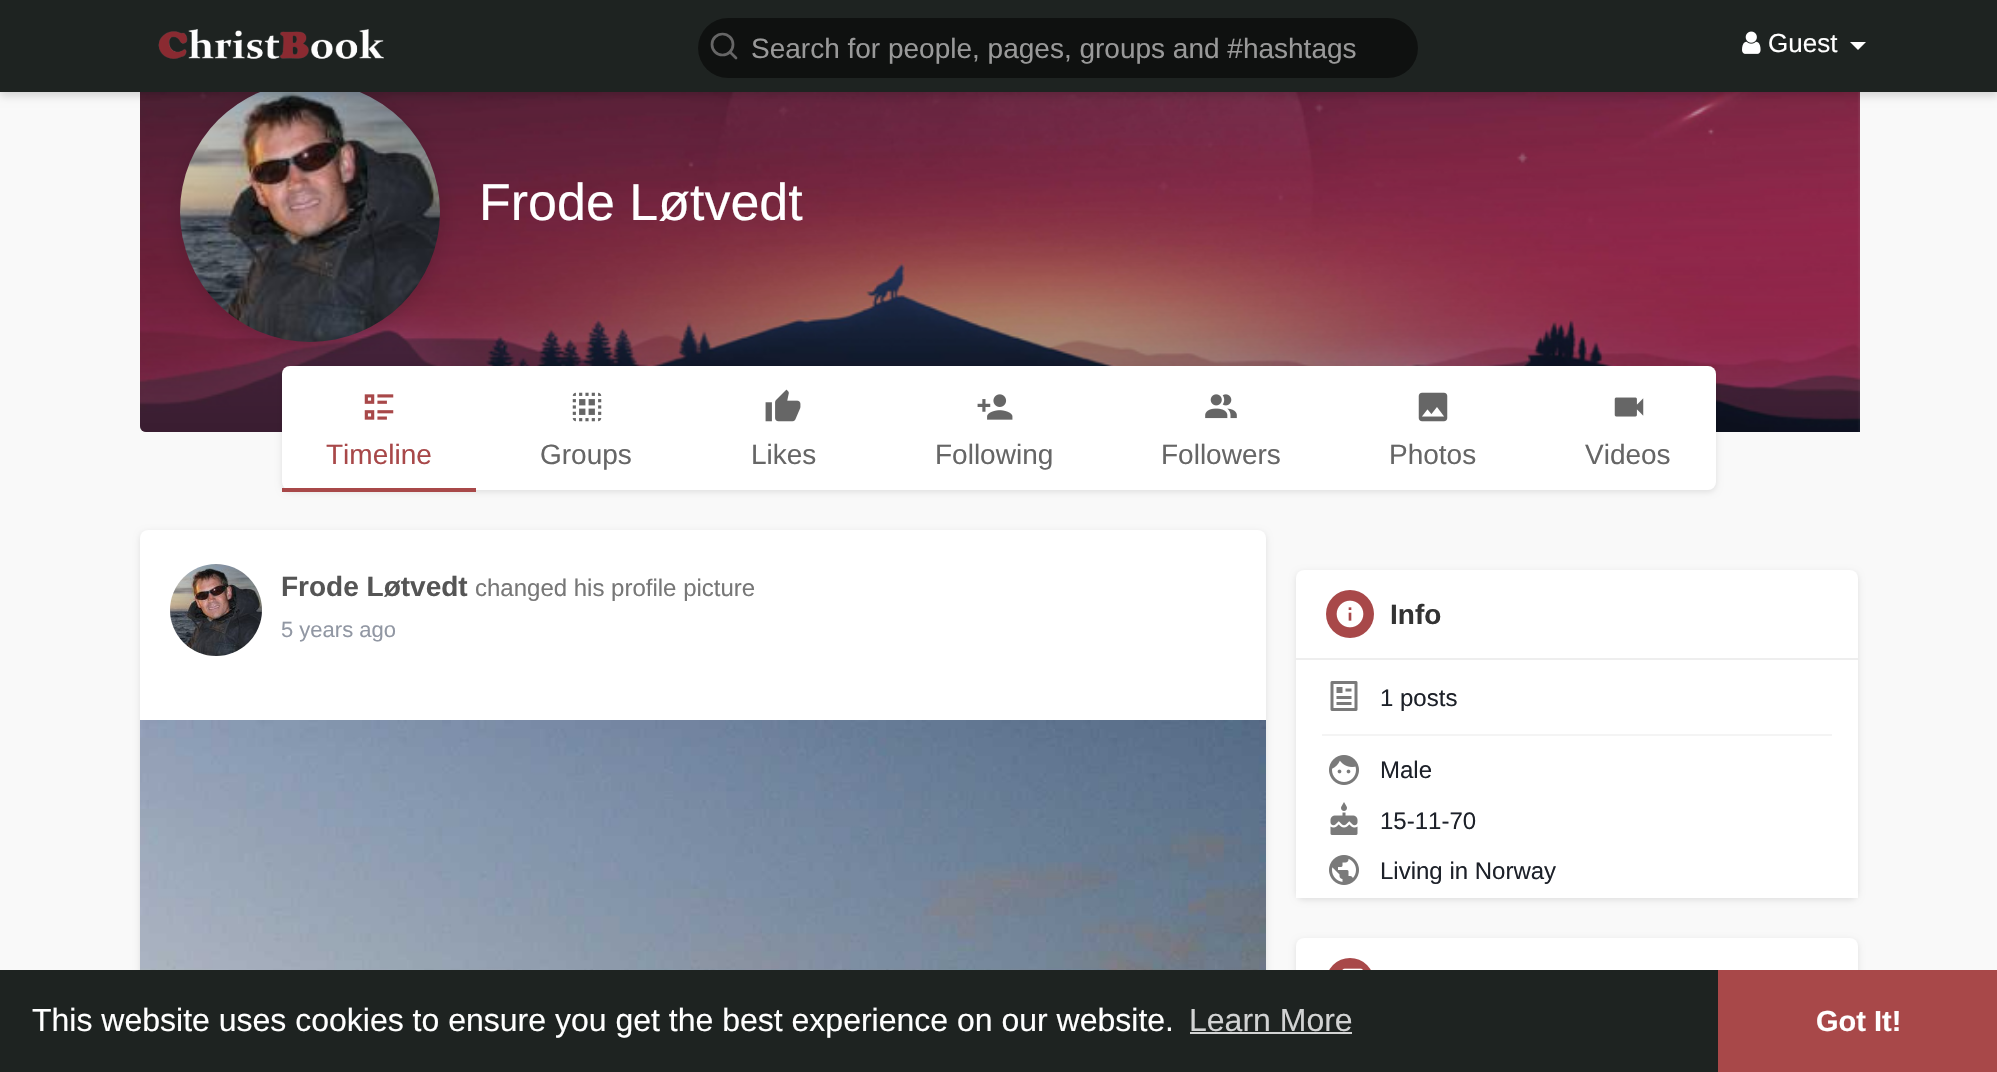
void draw(SkCanvas* canvas) {
	SkPaint fill;
	fill.setAntiAlias(true);
	auto makeFont = [&](const char* family, int weight, float size, bool italic = false) {
		SkFontStyle style(weight, SkFontStyle::kNormal_Width,
			italic ? SkFontStyle::kItalic_Slant : SkFontStyle::kUpright_Slant);
		SkFont result(fontMgr->matchFamilyStyle(family, style), size);
		result.setSubpixel(true);
		return result;
	};
	auto text = [&](const char* s, float x, float y, const SkFont& font) {
		canvas->drawString(s, x, y, font, fill);
	};
	auto box = [&](float l, float t, float r, float b) {
		canvas->drawRect(SkRect::MakeLTRB(l, t, r, b), fill);
	};
	auto roundBox = [&](float l, float t, float r, float b, float radius) {
		canvas->drawRoundRect(SkRect::MakeLTRB(l, t, r, b), radius, radius, fill);
	};
	auto picture = [&](const char* path, float l, float t, float r, float b) {
		auto image = SkImages::DeferredFromEncodedData(SkData::MakeFromFileName(path));
		canvas->drawImageRect(image, SkRect::MakeLTRB(l, t, r, b), SkSamplingOptions());
	};
	canvas->clear(0xFFF9F9F9);
	picture("image2.png", 140, 92, 1860, 432);
	{
		const SkColor colors[] = {0x00000000, 0x73000000};
		const float stops[] = {0, 1};
		const SkPoint ends[] = {{1000, 32}, {1000, 432}};
		fill.setShader(SkGradientShader::MakeLinear(ends, colors, stops, 2, SkTileMode::kClamp));
		fill.setAlpha(255);
	}
	canvas->drawPath(SkPathBuilder().moveTo(140, 32).lineTo(1860, 32).lineTo(1860, 432).lineTo(146, 432).cubicTo(142.5f, 432, 140, 429.5f, 140, 426).close().detach(), fill);
	fill.setShader(nullptr);
	fill.setColor(0x1A000000);
	fill.setMaskFilter(SkMaskFilter::MakeBlur(kNormal_SkBlurStyle, 3));
	canvas->drawRoundRect(SkRect::MakeLTRB(282, 368, 1716, 492), 8, 8, fill);
	fill.setMaskFilter(nullptr);
	fill.setColor(0xFFFFFFFF);
	roundBox(282, 366, 1716, 490, 8);
	fill.setColor(0x26000000);
	fill.setMaskFilter(SkMaskFilter::MakeBlur(kNormal_SkBlurStyle, 10));
	canvas->drawRoundRect(SkRect::MakeLTRB(180, 86, 440, 346), 130, 130, fill);
	fill.setMaskFilter(nullptr);
	picture("image3.png", 180, 92, 440, 342);
	fill.setMaskFilter(SkMaskFilter::MakeBlur(kNormal_SkBlurStyle, 4));
	canvas->drawRect(SkRect::MakeLTRB(0, 4, 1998, 96), fill);
	fill.setMaskFilter(nullptr);
	fill.setColor(0xFF1E2321);
	box(0, 0, 1997, 92);
	picture("image0.png", 158, 29, 384, 59);
	fill.setColor(0xFF0F1110);
	roundBox(698, 18, 1418, 78, 30);
	fill.setStyle(SkPaint::kStroke_Style);
	fill.setStrokeWidth(2.7f);
	fill.setColor(0xFF666666);
	canvas->drawCircle(722.5f, 44.5f, 10.5f, fill);
	fill.setStrokeCap(SkPaint::kRound_Cap);
	fill.setStrokeJoin(SkPaint::kRound_Join);
	canvas->drawPath(SkPathBuilder().moveTo(736, 58).lineTo(730, 52).detach(), fill);
	picture("image1.png", 1742, 31, 1761, 54);
	fill.setStyle(SkPaint::kFill_Style);
	fill.setColor(0xFFFFFFFF);
	canvas->drawPath(SkPathBuilder().moveTo(1850, 42).lineTo(1866, 42).lineTo(1858, 50).close().detach(), fill);
	fill.setColor(0xFFA84849);
	box(282, 488, 476, 492);
	picture("image4.png", 364, 394, 394, 420);
	picture("image5.png", 572, 392, 602, 422);
	picture("image6.png", 765, 389, 801, 422);
	picture("image7.png", 977, 394, 1013, 420);
	picture("image8.png", 1205, 394, 1237, 419);
	picture("image9.png", 1418, 392, 1448, 422);
	picture("image10.png", 1614, 397, 1644, 417);
	fill.setColor(0x1A000000);
	fill.setMaskFilter(SkMaskFilter::MakeBlur(kNormal_SkBlurStyle, 3));
	canvas->drawRoundRect(SkRect::MakeLTRB(140, 532, 1266, 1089), 8, 8, fill);
	fill.setMaskFilter(nullptr);
	fill.setColor(0xFFFFFFFF);
	roundBox(140, 530, 1266, 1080, 8);
	picture("image11.png", 170, 564, 262, 656);
	picture("image12.png", 140, 720, 1266, 970);
	fill.setColor(0x1A000000);
	fill.setMaskFilter(SkMaskFilter::MakeBlur(kNormal_SkBlurStyle, 3));
	canvas->drawRoundRect(SkRect::MakeLTRB(1296, 572, 1858, 900), 8, 8, fill);
	fill.setMaskFilter(nullptr);
	fill.setColor(0xFFFFFFFF);
	roundBox(1296, 570, 1858, 898, 8);
	fill.setColor(0xFFEEEEEE);
	box(1296, 658, 1858, 660);
	fill.setColor(0xFFA84849);
	canvas->drawCircle(1350, 614, 24, fill);
	picture("image13.png", 1336, 600, 1364, 628);
	picture("image14.png", 1330, 681, 1358, 711);
	fill.setColor(0xFFF4F4F4);
	box(1322, 734, 1832, 736);
	picture("image15.png", 1329, 755, 1359, 785);
	picture("image16.png", 1330, 802, 1358, 835);
	fill.setColor(0xFFFFFFFF);
	box(1296, 891, 1858, 898);
	picture("image17.png", 1329, 855, 1359, 885);
	fill.setColor(0x1A000000);
	fill.setMaskFilter(SkMaskFilter::MakeBlur(kNormal_SkBlurStyle, 3));
	canvas->drawRoundRect(SkRect::MakeLTRB(1296, 940, 1858, 1030), 8, 8, fill);
	fill.setMaskFilter(nullptr);
	fill.setColor(0xFFFFFFFF);
	roundBox(1296, 938, 1858, 1028, 8);
	fill.setColor(0xFFA84849);
	canvas->drawCircle(1350, 982, 24, fill);
	picture("image18.png", 1342, 968, 1363, 970);
	fill.setColor(0xFF1E2321);
	box(0, 970, 1718, 1072);
	fill.setColor(0xFFD2D3D3);
	box(1190, 1032, 1352, 1034);
	fill.setColor(0xFFA84849);
	box(1718, 970, 1997, 1072);
	auto font1 = makeFont("Liberation Sans", 400, 28);
	fill.setColor(0xFF999999);
	text("Search for people, pages, groups and #hashtags", 751, 58, font1);
	auto font2 = makeFont("Liberation Sans", 400, 26);
	fill.setColor(0xFFFFFFFF);
	text("Guest", 1768, 52, font2);
	auto font3 = makeFont("Liberation Sans", 400, 52);
	text("Frode Løtvedt", 479, 220, font3);
	fill.setColor(0xFFA84849);
	text("Timeline", 326, 464, font1);
	fill.setColor(0xFF666666);
	text("Groups", 540, 464, font1);
	text("Likes", 751, 464, font1);
	text("Following", 935, 464, font1);
	text("Followers", 1161, 464, font1);
	text("Photos", 1389, 464, font1);
	text("Videos", 1585, 464, font1);
	auto font4 = makeFont("Liberation Sans", 700, 28);
	fill.setColor(0xFF555555);
	text("Frode Løtvedt", 281, 596, font4);
	auto font5 = makeFont("Liberation Sans", 400, 24);
	fill.setColor(0xFF777777);
	text("changed his profile picture", 475, 596, font5);
	auto font6 = makeFont("Liberation Sans", 400, 22);
	fill.setColor(0xFF9197A3);
	text("5 years ago", 281, 637, font6);
	fill.setColor(0xFF333333);
	text("Info", 1390, 624, font4);
	fill.setColor(0xFF1D2129);
	text("1 posts", 1380, 706, font5);
	text("Male", 1380, 778, font5);
	text("15-11-70", 1380, 829, font5);
	text("Living in Norway", 1380, 879, font5);
	auto font7 = makeFont("Liberation Sans", 400, 32);
	fill.setColor(0xFFFFFFFF);
	text("This website uses cookies to ensure you get the best experience on our website.", 32, 1031, font7);
	fill.setColor(0xFFD2D3D3);
	text("Learn More", 1189, 1031, font7);
	auto font8 = makeFont("Liberation Sans", 700, 29);
	fill.setColor(0xFFFFFFFF);
	text("Got It!", 1816, 1031, font8);
}
